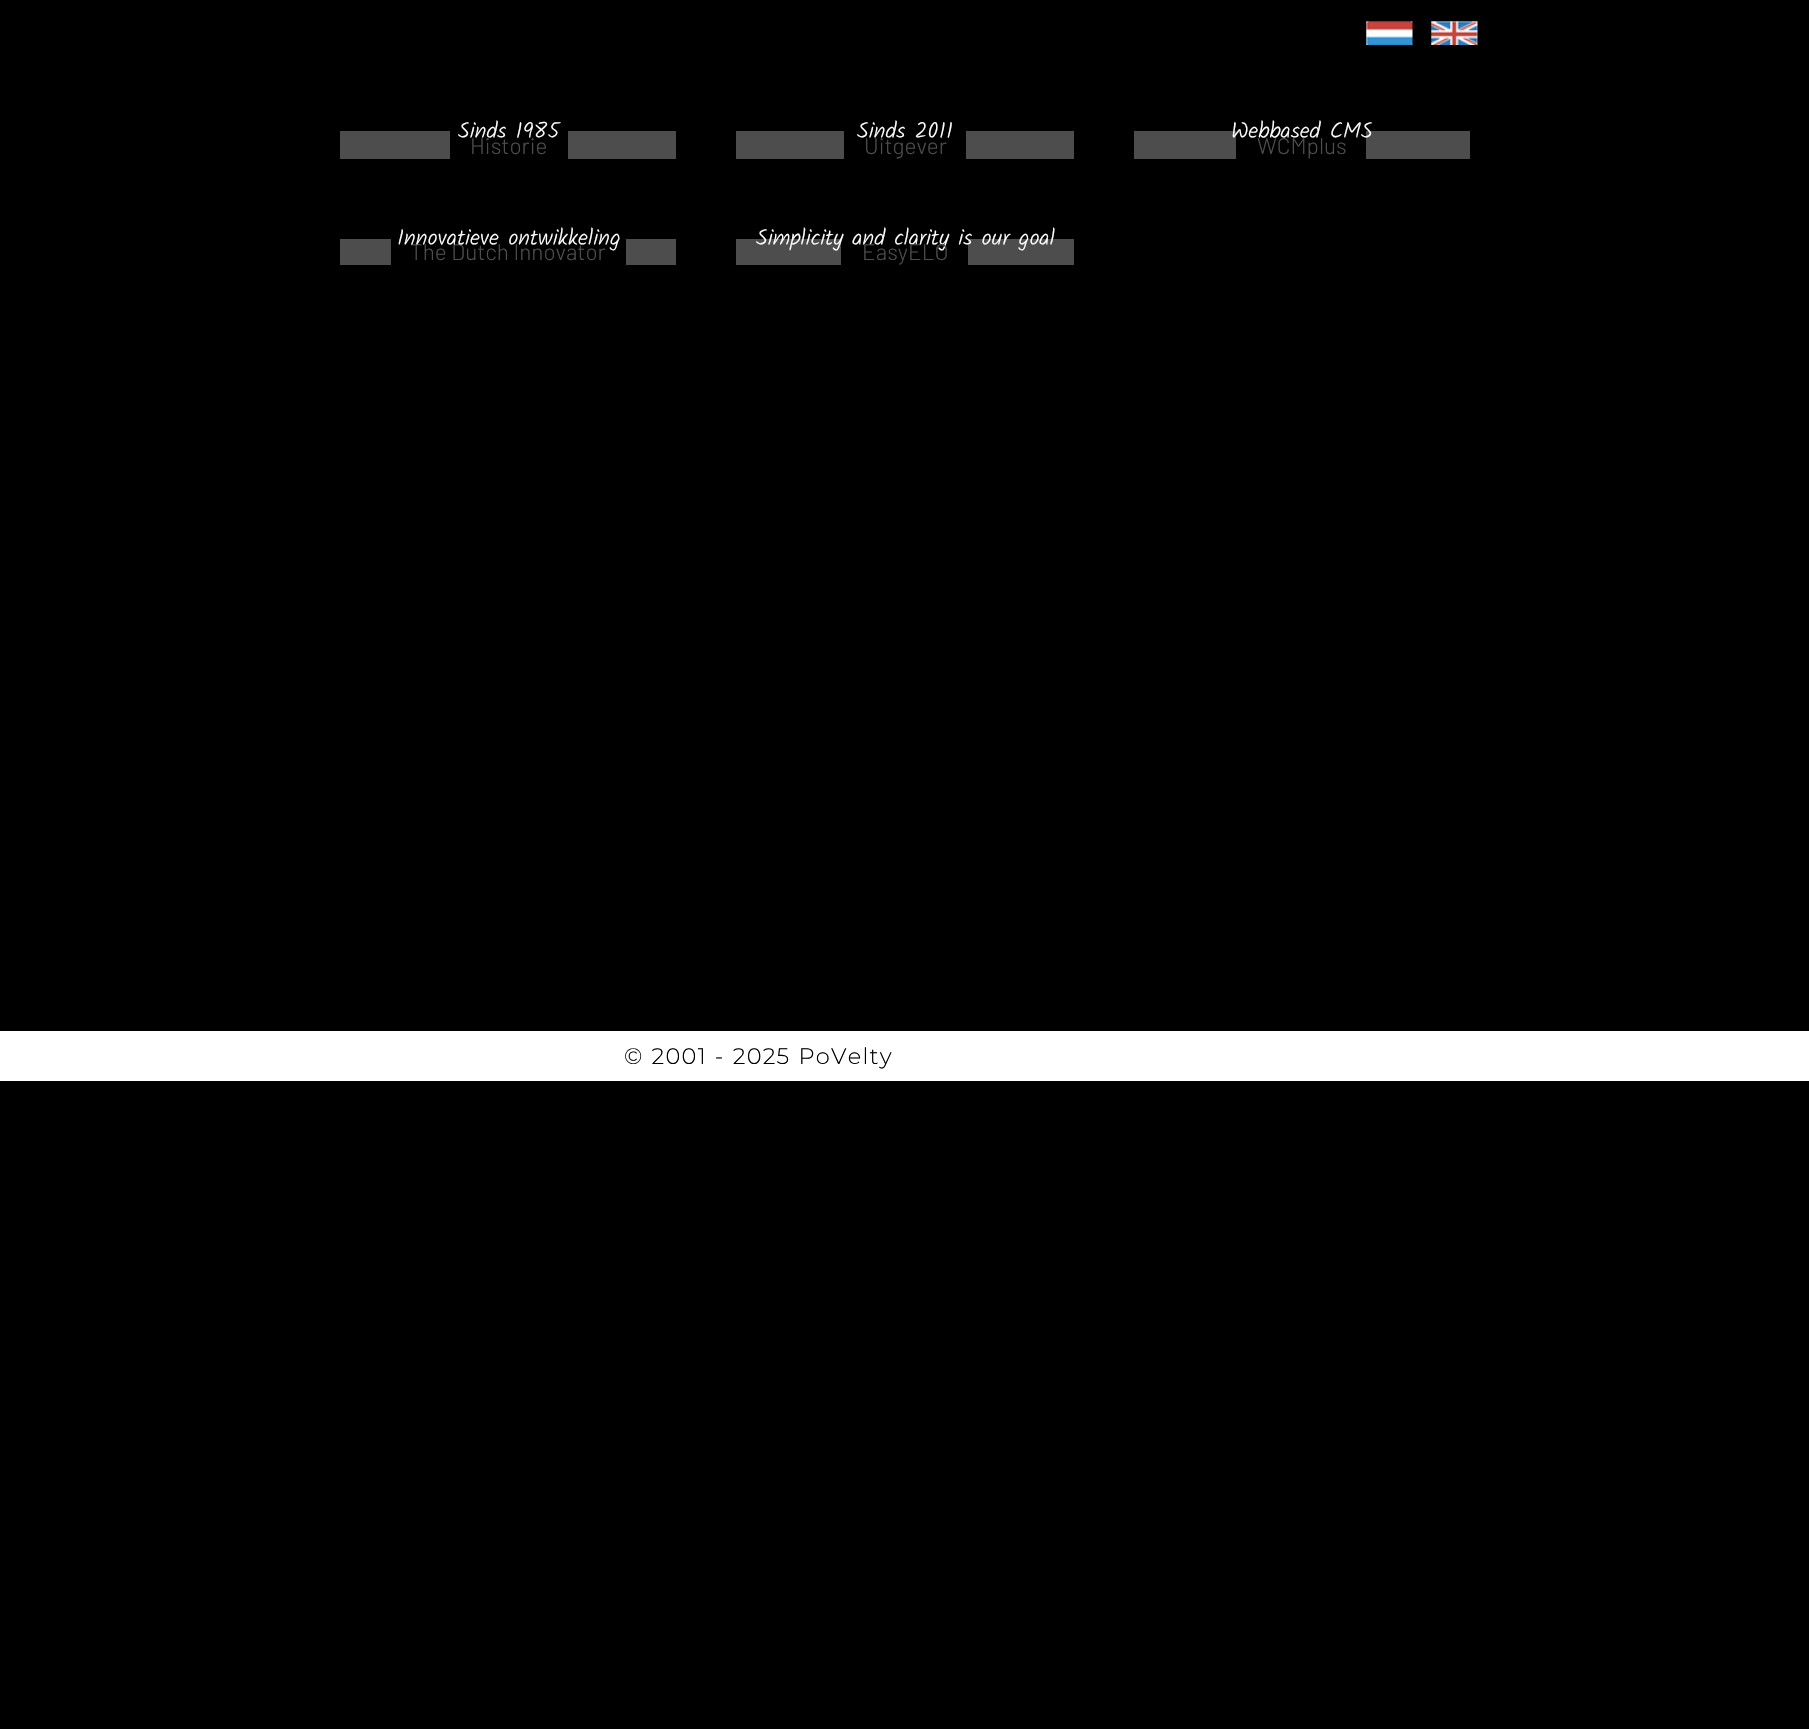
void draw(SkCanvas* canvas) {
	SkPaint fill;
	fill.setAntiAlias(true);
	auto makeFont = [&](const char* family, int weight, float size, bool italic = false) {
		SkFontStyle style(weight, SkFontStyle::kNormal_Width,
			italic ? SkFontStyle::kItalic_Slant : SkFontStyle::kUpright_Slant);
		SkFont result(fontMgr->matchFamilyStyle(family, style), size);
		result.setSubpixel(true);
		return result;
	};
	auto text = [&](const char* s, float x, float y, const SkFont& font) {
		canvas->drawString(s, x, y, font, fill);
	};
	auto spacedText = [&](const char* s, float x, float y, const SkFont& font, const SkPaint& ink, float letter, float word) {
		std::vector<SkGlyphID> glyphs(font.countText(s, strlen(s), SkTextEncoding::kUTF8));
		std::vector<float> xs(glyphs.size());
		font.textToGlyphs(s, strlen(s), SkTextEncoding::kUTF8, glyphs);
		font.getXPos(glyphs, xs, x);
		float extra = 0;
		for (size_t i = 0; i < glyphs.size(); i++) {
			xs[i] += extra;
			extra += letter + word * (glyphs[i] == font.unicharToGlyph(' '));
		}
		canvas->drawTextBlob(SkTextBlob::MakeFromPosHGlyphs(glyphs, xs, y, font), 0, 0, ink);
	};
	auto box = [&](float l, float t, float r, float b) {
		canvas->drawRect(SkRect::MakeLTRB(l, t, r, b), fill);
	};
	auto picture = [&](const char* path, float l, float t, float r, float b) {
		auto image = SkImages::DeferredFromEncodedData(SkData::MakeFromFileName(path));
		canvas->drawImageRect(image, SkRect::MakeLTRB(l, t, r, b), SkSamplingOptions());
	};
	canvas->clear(0xFF000000);
	picture("image0.png", 1366, 21, 1413, 45);
	picture("image1.png", 1431, 21, 1478, 45);
	fill.setColor(0xFF4D4D4D);
	box(340, 131, 676, 159);
	fill.setColor(0xFF000000);
	box(450, 131, 568, 159);
	fill.setColor(0xFF4D4D4D);
	box(736, 131, 1074, 159);
	fill.setColor(0xFF000000);
	box(844, 131, 966, 159);
	fill.setColor(0xFF4D4D4D);
	box(1134, 131, 1470, 159);
	fill.setColor(0xFF000000);
	box(1236, 131, 1366, 159);
	fill.setColor(0xFF4D4D4D);
	box(340, 239, 676, 265);
	fill.setColor(0xFF000000);
	box(391, 239, 626, 265);
	fill.setColor(0xFF4D4D4D);
	box(736, 239, 1074, 265);
	fill.setColor(0xFF000000);
	box(841, 239, 968, 265);
	fill.setColor(0xFFFFFFFF);
	box(0, 1031, 1809, 1081);
	auto font1 = makeFont("Kalam", 300, 22.5f);
	text("Sinds 1985", 458, 138, font1);
	auto font2 = makeFont("Barlow", 300, 22.5f);
	fill.setColor(0xFF4D4D4D);
	text("Historie", 470, 154, font2);
	fill.setColor(0xFFFFFFFF);
	text("Sinds 2011", 857, 138, font1);
	fill.setColor(0xFF4D4D4D);
	text("Uitgever", 864, 154, font2);
	fill.setColor(0xFFFFFFFF);
	text("Webbased CMS", 1231, 138, font1);
	fill.setColor(0xFF4D4D4D);
	text("WCMplus", 1257, 154, font2);
	text("The Dutch Innovator", 410, 260, font2);
	fill.setColor(0xFFFFFFFF);
	text("Innovatieve ontwikkeling", 397, 245, font1);
	text("Simplicity and clarity is our goal", 756, 245, font1);
	fill.setColor(0xFF4D4D4D);
	text("EasyELO", 862, 260, font2);
	auto font3 = makeFont("Montserrat", 100, 22.5f);
	fill.setColor(0xFF000000);
	spacedText("© 2001 - 2025 PoVelty", 624, 1064, font3, fill, 1.25f, 1);
}
